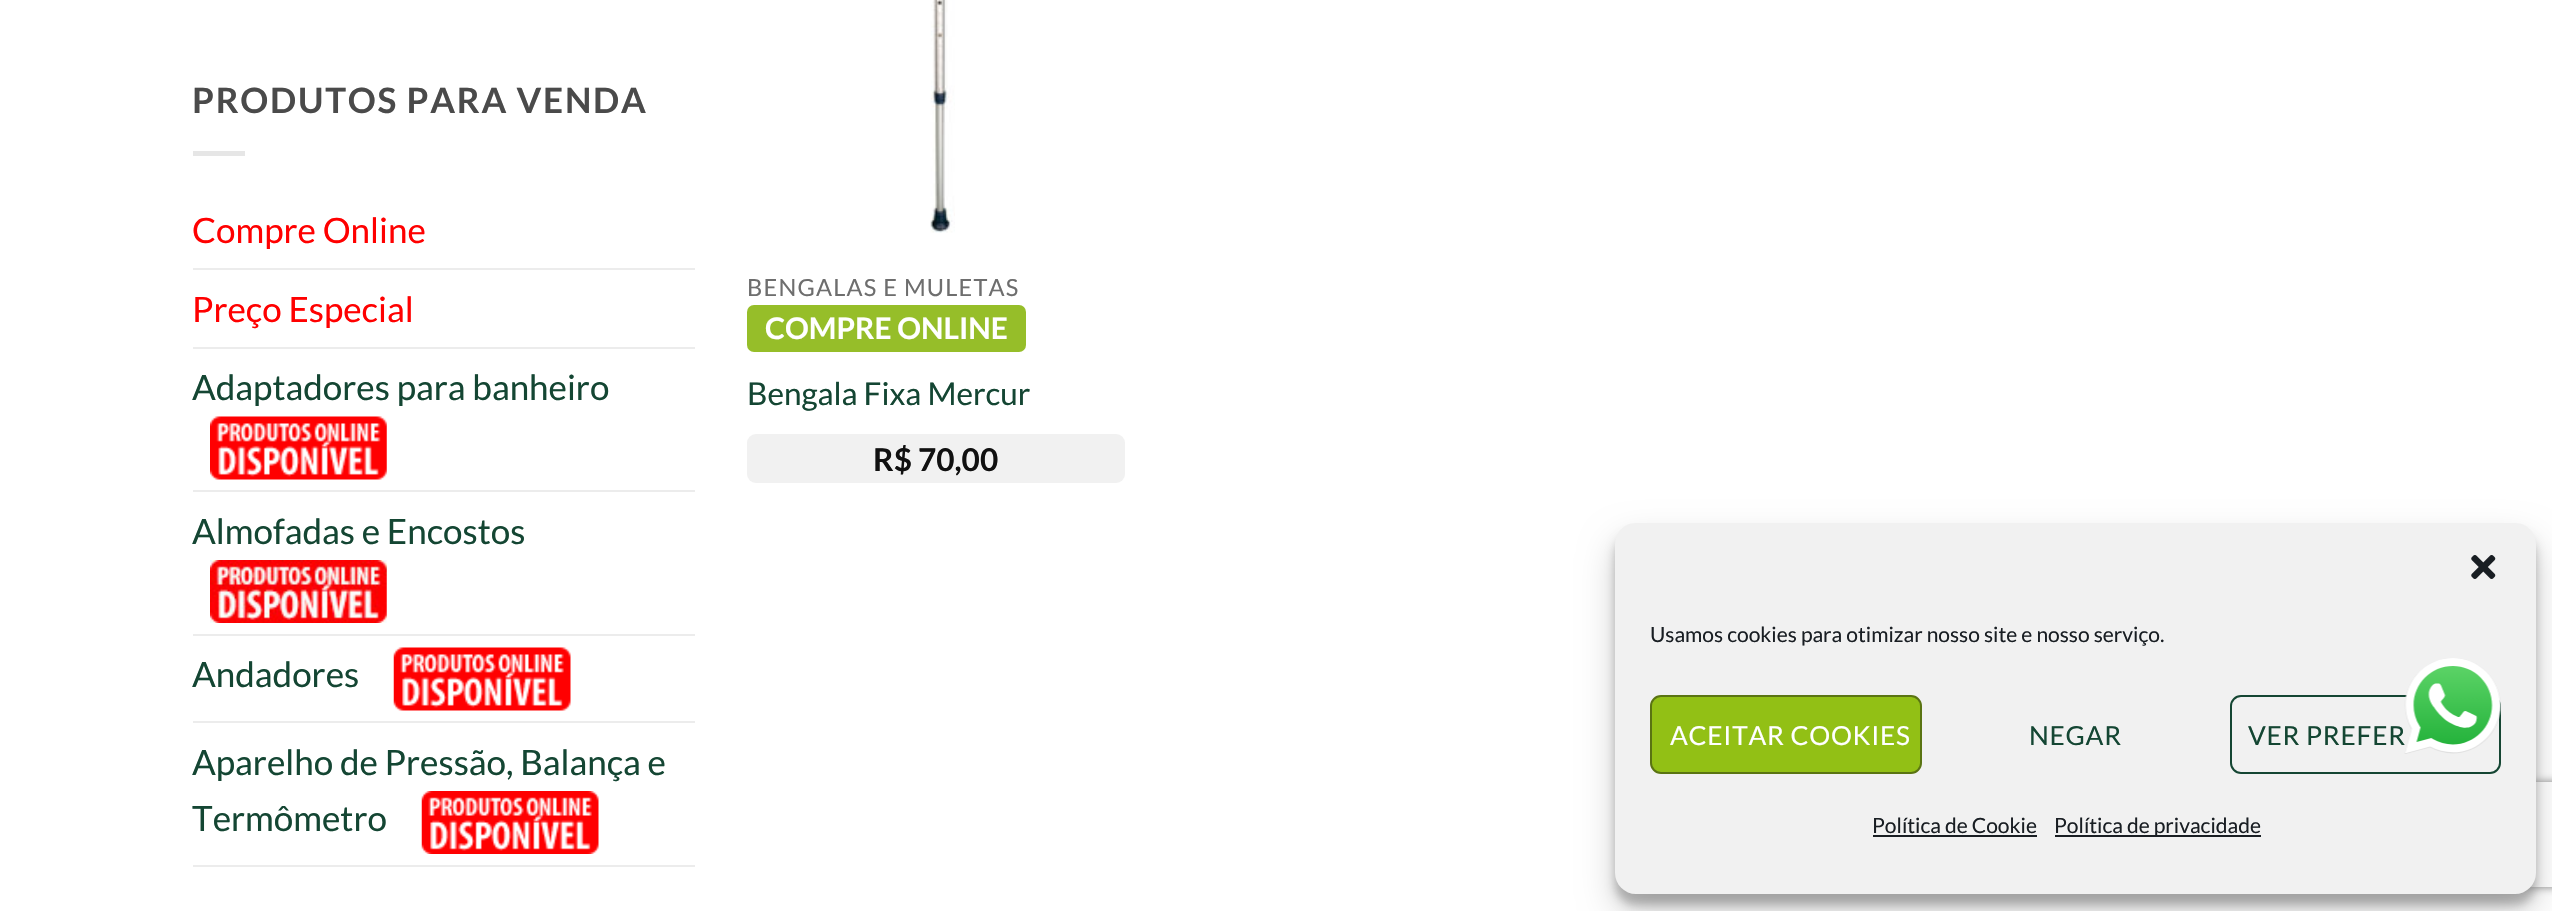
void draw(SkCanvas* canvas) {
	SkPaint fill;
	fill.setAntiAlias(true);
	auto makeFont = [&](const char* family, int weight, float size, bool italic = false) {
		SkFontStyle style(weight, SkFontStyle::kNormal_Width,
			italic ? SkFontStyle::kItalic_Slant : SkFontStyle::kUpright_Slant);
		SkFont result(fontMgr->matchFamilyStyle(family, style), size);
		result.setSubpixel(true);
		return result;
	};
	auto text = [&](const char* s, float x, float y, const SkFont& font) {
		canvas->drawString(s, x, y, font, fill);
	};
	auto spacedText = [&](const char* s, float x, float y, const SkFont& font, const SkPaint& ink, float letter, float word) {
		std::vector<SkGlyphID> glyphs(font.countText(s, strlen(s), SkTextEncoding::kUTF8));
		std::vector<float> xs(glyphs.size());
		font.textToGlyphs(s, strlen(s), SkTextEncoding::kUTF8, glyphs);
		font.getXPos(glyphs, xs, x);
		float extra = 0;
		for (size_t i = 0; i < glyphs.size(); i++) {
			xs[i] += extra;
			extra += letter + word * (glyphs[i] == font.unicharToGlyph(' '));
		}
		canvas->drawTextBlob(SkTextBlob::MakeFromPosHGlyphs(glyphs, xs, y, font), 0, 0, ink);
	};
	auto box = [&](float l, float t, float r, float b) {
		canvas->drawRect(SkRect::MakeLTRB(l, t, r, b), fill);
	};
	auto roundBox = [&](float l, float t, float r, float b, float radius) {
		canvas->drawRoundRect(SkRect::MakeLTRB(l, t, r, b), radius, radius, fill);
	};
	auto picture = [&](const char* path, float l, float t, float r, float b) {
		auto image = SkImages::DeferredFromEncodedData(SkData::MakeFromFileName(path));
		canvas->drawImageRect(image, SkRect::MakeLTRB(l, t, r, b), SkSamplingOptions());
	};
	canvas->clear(0xFFFFFFFF);
	fill.setColor(0xFFE6E6E6);
	box(193, 151, 245, 156);
	fill.setColor(0xFFECECEC);
	box(193, 268, 695, 270);
	box(193, 347, 695, 349);
	picture("image0.png", 210, 416, 387, 480);
	box(193, 490, 695, 492);
	picture("image1.png", 210, 560, 387, 623);
	box(193, 634, 695, 636);
	picture("image2.png", 393, 647, 571, 711);
	box(193, 721, 695, 723);
	picture("image3.png", 421, 791, 599, 854);
	box(193, 865, 695, 867);
	picture("image4.png", 930, 0, 955, 233);
	fill.setColor(0xFF96BE29);
	roundBox(747, 305, 1026, 352, 7);
	fill.setColor(0xFFF1F1F1);
	roundBox(747, 434, 1125, 483, 9);
	fill.setColor(0x3B000000);
	fill.setMaskFilter(SkMaskFilter::MakeBlur(kNormal_SkBlurStyle, 5));
	canvas->drawRoundRect(SkRect::MakeLTRB(1615, 534, 2536, 905), 21, 21, fill);
	fill.setMaskFilter(nullptr);
	fill.setColor(0x30000000);
	fill.setMaskFilter(SkMaskFilter::MakeBlur(kNormal_SkBlurStyle, 17.5f));
	canvas->drawRoundRect(SkRect::MakeLTRB(1615, 541, 2536, 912), 21, 21, fill);
	fill.setMaskFilter(nullptr);
	canvas->save();
	canvas->clipPath(SkPathBuilder(SkPathFillType::kEvenOdd).moveTo(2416, 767).lineTo(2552, 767).lineTo(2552, 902).lineTo(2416, 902).close().moveTo(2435, 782).lineTo(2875, 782).cubicTo(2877, 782, 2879, 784, 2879, 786).lineTo(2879, 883).cubicTo(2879, 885, 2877, 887, 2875, 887).lineTo(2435, 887).cubicTo(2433, 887, 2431, 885, 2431, 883).lineTo(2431, 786).cubicTo(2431, 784, 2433, 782, 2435, 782).close().detach(), true);
	fill.setColor(0xFF808080);
	fill.setMaskFilter(SkMaskFilter::MakeBlur(kNormal_SkBlurStyle, 4.5f));
	canvas->drawRoundRect(SkRect::MakeLTRB(2431, 782, 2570, 887), 4, 4, fill);
	fill.setMaskFilter(nullptr);
	canvas->restore();
	fill.setColor(0xFFF1F1F1);
	roundBox(1615, 523, 2536, 894, 21);
	picture("image5.png", 2471, 555, 2496, 579);
	fill.setColor(0xFF92C015);
	canvas->drawRoundRect(SkRect::MakeLTRB(1651, 696, 1921, 773), 10, 10, fill);
	fill.setStyle(SkPaint::kStroke_Style);
	fill.setStrokeWidth(2);
	fill.setColor(0xFF5A7412);
	canvas->drawRoundRect(SkRect::MakeLTRB(1651, 696, 1921, 773), 10, 10, fill);
	fill.setColor(0xFF154633);
	canvas->drawRoundRect(SkRect::MakeLTRB(2231, 696, 2500, 773), 10, 10, fill);
	fill.setStyle(SkPaint::kFill_Style);
	fill.setColor(0xFF191E23);
	box(1873, 835, 2037, 837);
	box(2055, 835, 2261, 837);
	auto font1 = makeFont("Lato", 700, 35);
	fill.setColor(0xFF4A4A4A);
	spacedText("PRODUTOS PARA VENDA", 192, 113, font1, fill, 1.75f, 0);
	auto font2 = makeFont("Lato", 400, 35);
	fill.setColor(0xFFFF0000);
	text("Compre Online", 192, 243, font2);
	text("Preço Especial", 192, 322, font2);
	fill.setColor(0xFF144633);
	text("Adaptadores para banheiro", 192, 400, font2);
	text("Almofadas e Encostos", 192, 544, font2);
	text("Andadores", 192, 687, font2);
	text("Aparelho de Pressão, Balança e", 192, 775, font2);
	text("Termômetro", 192, 831, font2);
	auto font3 = makeFont("Lato", 400, 23.6f);
	fill.setColor(0xFF6E6E6E);
	spacedText("BENGALAS E MULETAS", 747, 296, font3, fill, 1.2f, 0);
	auto font4 = makeFont("Lato", 700, 29.75f);
	fill.setColor(0xFFFFFFFF);
	text("COMPRE ONLINE", 765, 339, font4);
	auto font5 = makeFont("Lato", 400, 31.5f);
	fill.setColor(0xFF144633);
	text("Bengala Fixa Mercur", 747, 405, font5);
	auto font6 = makeFont("Lato", 700, 31.5f);
	fill.setColor(0xFF111111);
	text("R$ 70,00", 873, 471, font6);
	auto font7 = makeFont("Lato", 400, 21);
	fill.setColor(0xFF191E23);
	text("Usamos cookies para otimizar nosso site e nosso serviço.", 1650, 642, font7);
	auto font8 = makeFont("Lato", 400, 26.25f);
	fill.setColor(0xFFFFFFFF);
	spacedText("ACEITAR COOKIES", 1670, 745, font8, fill, 0.75f, 0);
	fill.setColor(0xFF144633);
	spacedText("NEGAR", 2029, 745, font8, fill, 0.75f, 0);
	spacedText("VER PREFER", 2248, 745, font8, fill, 0.75f, 0);
	fill.setColor(0xFF191E23);
	text("Política de Cookie", 1872, 833, font7);
	text("Política de privacidade", 2054, 833, font7);
	picture("image6.png", 2404, 658, 2501, 754);
}
